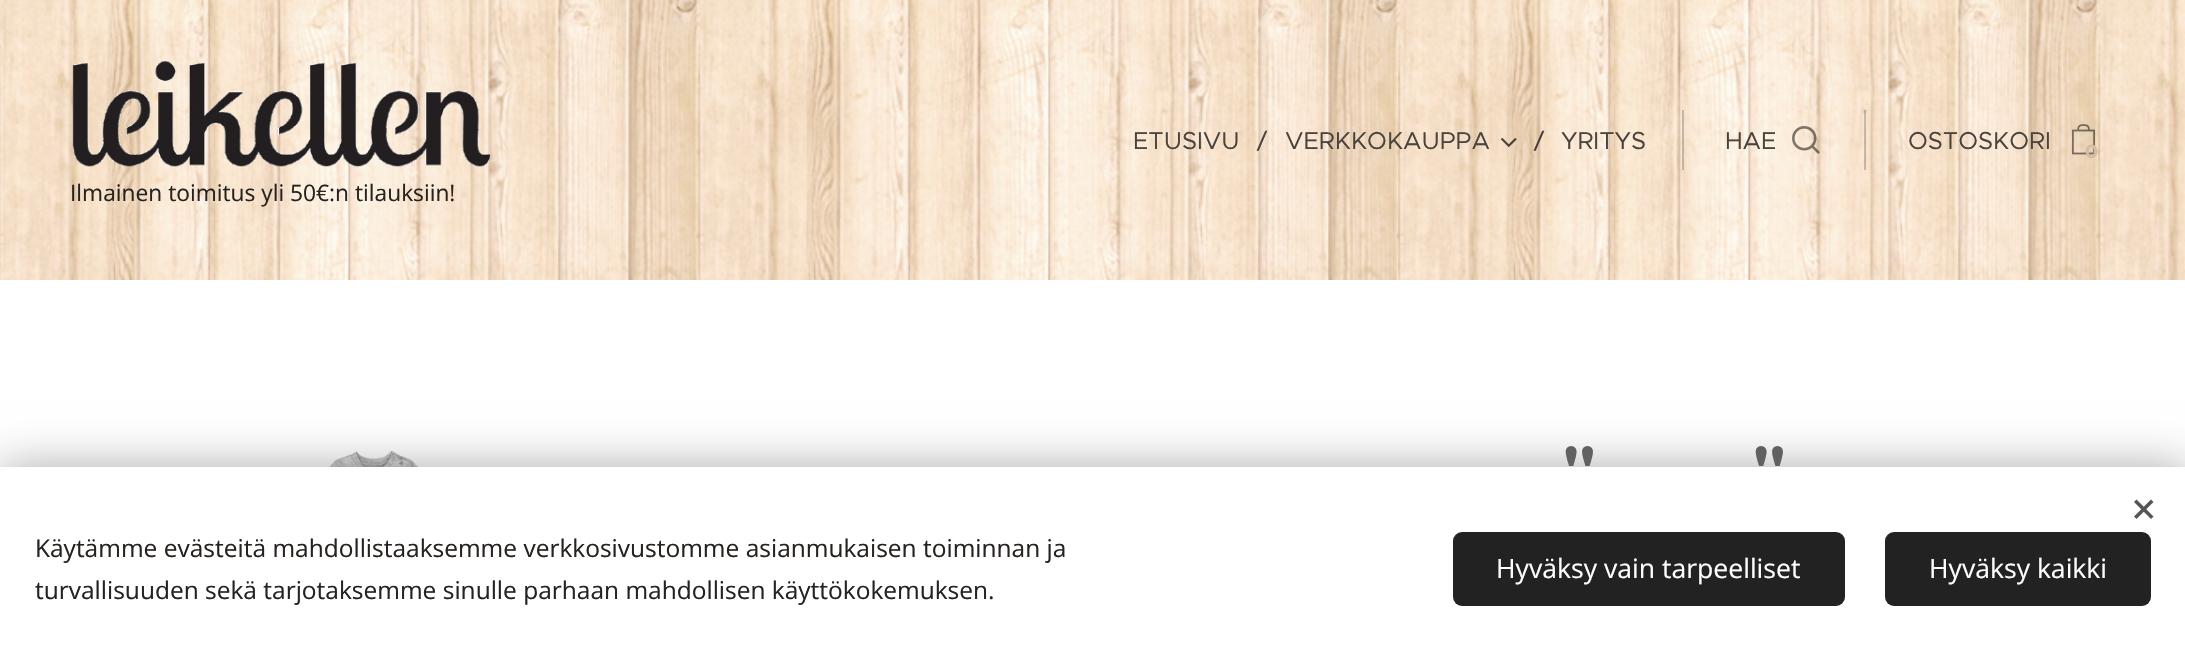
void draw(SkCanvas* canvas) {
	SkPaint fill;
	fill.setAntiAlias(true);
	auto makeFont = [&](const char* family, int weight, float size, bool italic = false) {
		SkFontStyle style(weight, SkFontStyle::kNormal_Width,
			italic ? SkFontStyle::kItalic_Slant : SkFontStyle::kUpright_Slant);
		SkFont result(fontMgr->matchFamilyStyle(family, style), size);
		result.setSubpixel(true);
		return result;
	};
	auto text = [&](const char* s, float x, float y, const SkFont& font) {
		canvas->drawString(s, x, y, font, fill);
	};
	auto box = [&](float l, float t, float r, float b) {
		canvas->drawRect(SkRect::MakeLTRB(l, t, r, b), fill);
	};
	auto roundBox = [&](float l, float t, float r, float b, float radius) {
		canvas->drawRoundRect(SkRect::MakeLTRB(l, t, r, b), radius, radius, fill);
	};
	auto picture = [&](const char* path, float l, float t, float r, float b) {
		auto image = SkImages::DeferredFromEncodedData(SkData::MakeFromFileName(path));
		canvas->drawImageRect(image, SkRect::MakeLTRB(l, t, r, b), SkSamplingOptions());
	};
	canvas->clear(0xFFFFFFFF);
	picture("image0.png", 0, 0, 2185, 280);
	picture("image1.png", 1501, 138, 1517, 147);
	fill.setColor(0x33000000);
	box(1682, 110, 1684, 170);
	picture("image2.png", 1792, 126, 1820, 154);
	box(1864, 110, 1866, 170);
	picture("image3.png", 2072, 124, 2095, 155);
	picture("image4.png", 72, 61, 490, 167);
	picture("image5.png", 290, 450, 461, 467);
	fill.setColor(0x54000000);
	fill.setMaskFilter(SkMaskFilter::MakeBlur(kNormal_SkBlurStyle, 22));
	canvas->drawRect(SkRect::MakeLTRB(0, 467, 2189, 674), fill);
	fill.setMaskFilter(nullptr);
	fill.setColor(0xFFFFFFFF);
	box(0, 467, 2185, 670);
	fill.setColor(0xFF555555);
	canvas->drawPath(SkPathBuilder().moveTo(2134, 516.5f).lineTo(2151, 499.5f).lineTo(2153.5f, 502).lineTo(2136.5f, 519).close().detach(), fill);
	canvas->drawPath(SkPathBuilder().moveTo(2136.5f, 499.5f).lineTo(2153.5f, 516.5f).lineTo(2151, 519).lineTo(2134, 502).close().detach(), fill);
	fill.setColor(0xFF222222);
	roundBox(1453, 532, 1845, 606, 9);
	roundBox(1885, 532, 2151, 606, 9);
	auto font1 = makeFont("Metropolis", 400, 24.5f);
	fill.setColor(0xFF4A443D);
	text("ETUSIVU", 1133, 149, font1);
	text("/", 1257, 149, font1);
	text("VERKKOKAUPPA", 1285, 149, font1);
	fill.setColor(0xFF463F37);
	text("/", 1534, 149, font1);
	fill.setColor(0xFF4A443D);
	text("YRITYS", 1561, 149, font1);
	text("HAE", 1725, 149, font1);
	text("OSTOSKORI", 1908, 149, font1);
	auto font2 = makeFont("Montserrat", 700, 19);
	fill.setColor(0xFFD2BDA3);
	text("0", 2085, 158, font2);
	auto font3 = makeFont("Open Sans", 400, 22.75f);
	fill.setColor(0xFF25221F);
	text("Ilmainen toimitus yli 50€:n tilauksiin!", 70, 201, font3);
	auto font4 = makeFont("Metropolis", 800, 63);
	fill.setColor(0xFF616161);
	text("\"", 1562, 490, font4);
	text("\"", 1752, 490, font4);
	auto font5 = makeFont("Open Sans", 400, 24.5f);
	fill.setColor(0xFF25221F);
	text("Käytämme evästeitä mahdollistaaksemme verkkosivustomme asianmukaisen toiminnan ja", 35, 557, font5);
	text("turvallisuuden sekä tarjotaksemme sinulle parhaan mahdollisen käyttökokemuksen.", 35, 599, font5);
	auto font6 = makeFont("Open Sans", 400, 26.6f);
	fill.setColor(0xFFFFFFFF);
	text("Hyväksy vain tarpeelliset", 1496, 578, font6);
	text("Hyväksy kaikki", 1929, 578, font6);
}
